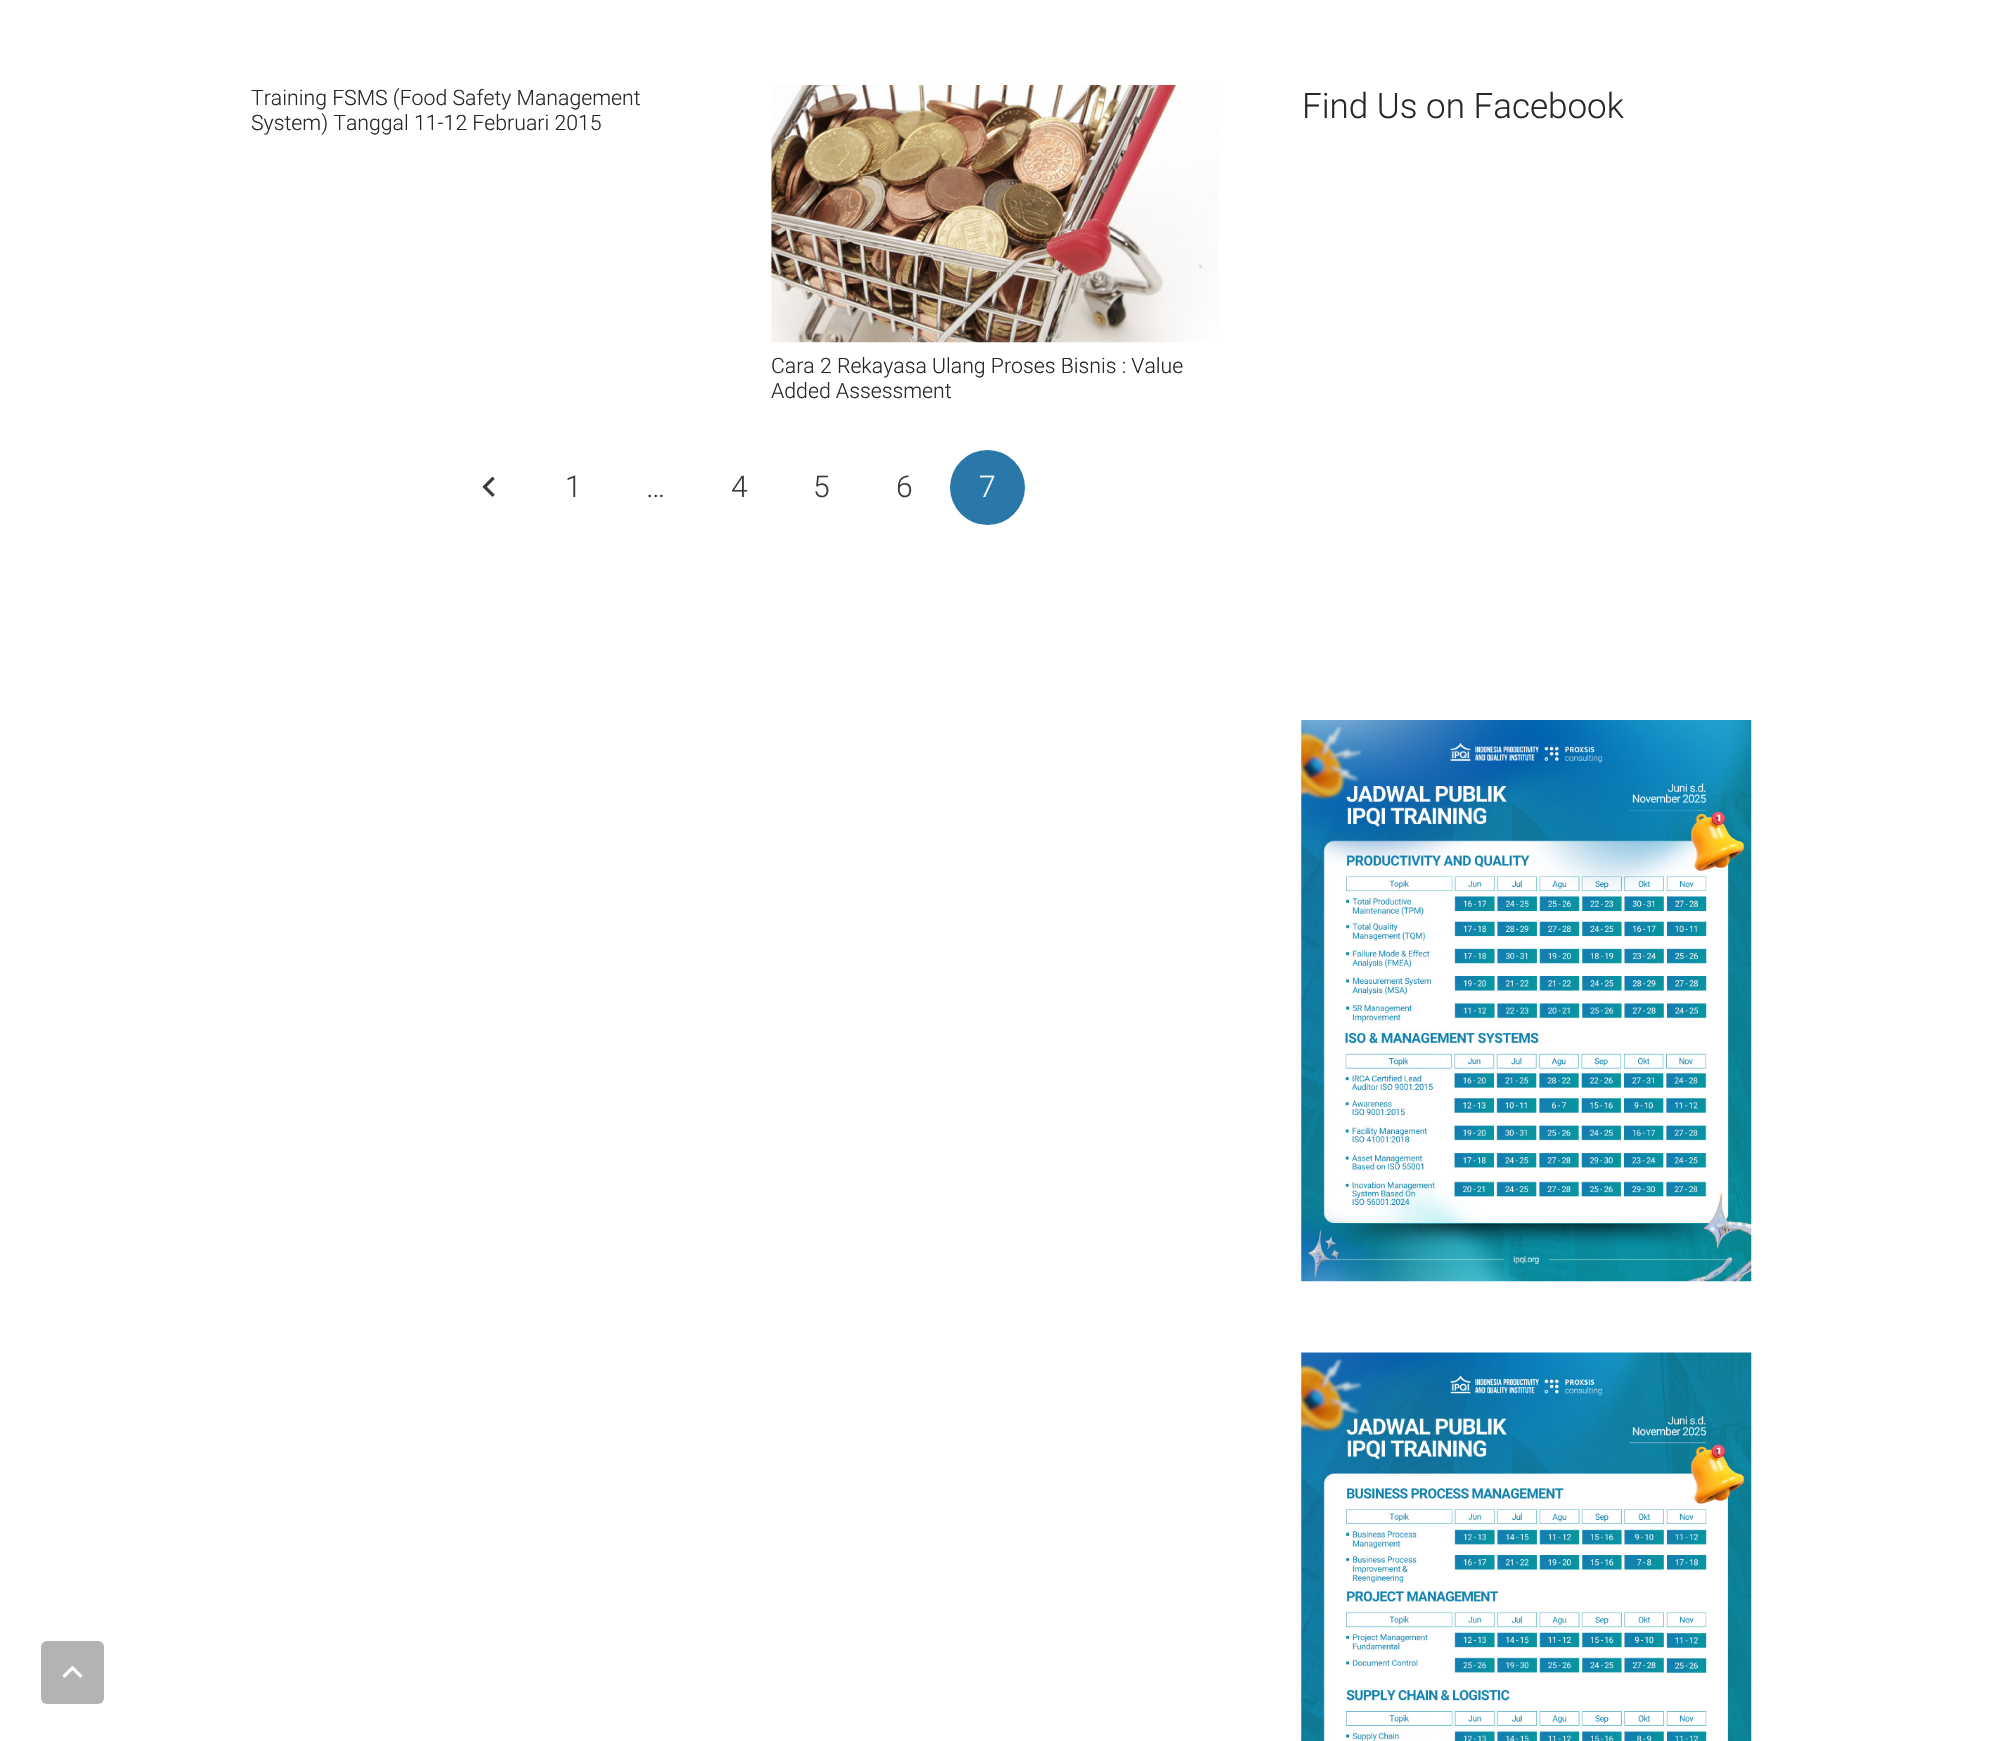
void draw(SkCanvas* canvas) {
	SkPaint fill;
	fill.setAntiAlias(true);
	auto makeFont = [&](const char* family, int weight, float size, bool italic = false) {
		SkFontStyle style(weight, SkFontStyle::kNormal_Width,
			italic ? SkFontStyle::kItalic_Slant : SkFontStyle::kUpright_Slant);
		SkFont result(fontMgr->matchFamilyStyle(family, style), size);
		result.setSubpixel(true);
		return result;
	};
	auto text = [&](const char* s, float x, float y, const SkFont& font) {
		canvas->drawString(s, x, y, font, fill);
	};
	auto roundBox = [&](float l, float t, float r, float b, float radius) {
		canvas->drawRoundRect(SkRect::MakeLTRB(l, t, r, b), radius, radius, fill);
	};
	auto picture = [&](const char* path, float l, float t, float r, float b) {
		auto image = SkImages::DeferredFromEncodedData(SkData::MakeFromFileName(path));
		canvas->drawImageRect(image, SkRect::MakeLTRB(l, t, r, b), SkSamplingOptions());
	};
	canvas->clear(0xFFFFFFFF);
	picture("image0.png", 771, 85, 1219, 343);
	picture("image1.png", 482, 476, 495, 497);
	fill.setColor(0xFF2A77A9);
	canvas->drawCircle(987.5f, 487.5f, 37.5f, fill);
	picture("image2.png", 1301, 720, 1752, 1282);
	picture("image3.png", 1301, 1352, 1752, 1741);
	fill.setColor(0xFFB3B3B3);
	roundBox(41, 1641, 104, 1704, 6);
	picture("image4.png", 62, 1665, 83, 1678);
	auto font1 = makeFont("Roboto", 300, 21.25f);
	fill.setColor(0xFF25282B);
	text("Training FSMS (Food Safety Management", 251, 105, font1);
	text("System) Tanggal 11-12 Februari 2015", 251, 130, font1);
	text("Cara 2 Rekayasa Ulang Proses Bisnis : Value", 771, 373, font1);
	text("Added Assessment", 771, 398, font1);
	auto font2 = makeFont("Roboto", 300, 30);
	fill.setColor(0xFF363B3F);
	text("1", 565, 497, font2);
	text("…", 646, 497, font2);
	text("4", 731, 497, font2);
	text("5", 813, 497, font2);
	text("6", 896, 497, font2);
	fill.setColor(0xFFFFFFFF);
	text("7", 979, 497, font2);
	auto font3 = makeFont("Roboto", 300, 35);
	fill.setColor(0xFF25282B);
	text("Find Us on Facebook", 1302, 118, font3);
}
